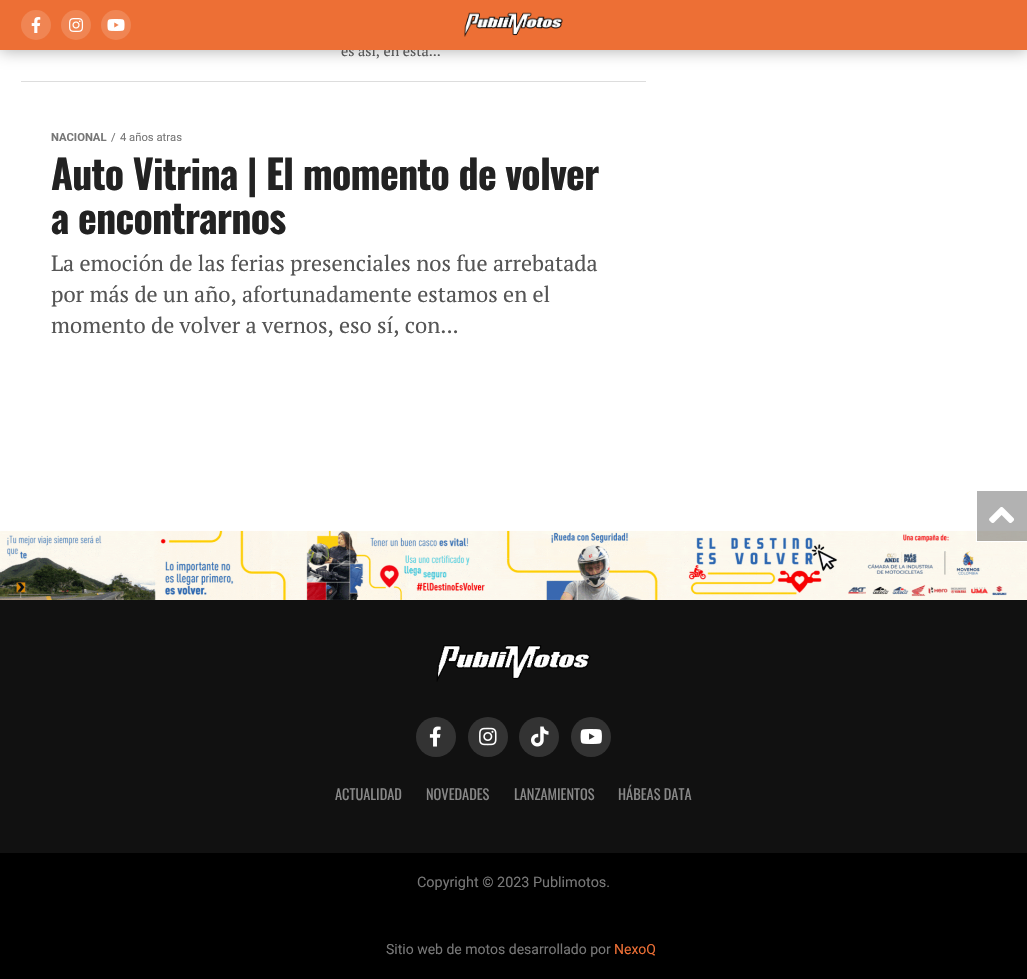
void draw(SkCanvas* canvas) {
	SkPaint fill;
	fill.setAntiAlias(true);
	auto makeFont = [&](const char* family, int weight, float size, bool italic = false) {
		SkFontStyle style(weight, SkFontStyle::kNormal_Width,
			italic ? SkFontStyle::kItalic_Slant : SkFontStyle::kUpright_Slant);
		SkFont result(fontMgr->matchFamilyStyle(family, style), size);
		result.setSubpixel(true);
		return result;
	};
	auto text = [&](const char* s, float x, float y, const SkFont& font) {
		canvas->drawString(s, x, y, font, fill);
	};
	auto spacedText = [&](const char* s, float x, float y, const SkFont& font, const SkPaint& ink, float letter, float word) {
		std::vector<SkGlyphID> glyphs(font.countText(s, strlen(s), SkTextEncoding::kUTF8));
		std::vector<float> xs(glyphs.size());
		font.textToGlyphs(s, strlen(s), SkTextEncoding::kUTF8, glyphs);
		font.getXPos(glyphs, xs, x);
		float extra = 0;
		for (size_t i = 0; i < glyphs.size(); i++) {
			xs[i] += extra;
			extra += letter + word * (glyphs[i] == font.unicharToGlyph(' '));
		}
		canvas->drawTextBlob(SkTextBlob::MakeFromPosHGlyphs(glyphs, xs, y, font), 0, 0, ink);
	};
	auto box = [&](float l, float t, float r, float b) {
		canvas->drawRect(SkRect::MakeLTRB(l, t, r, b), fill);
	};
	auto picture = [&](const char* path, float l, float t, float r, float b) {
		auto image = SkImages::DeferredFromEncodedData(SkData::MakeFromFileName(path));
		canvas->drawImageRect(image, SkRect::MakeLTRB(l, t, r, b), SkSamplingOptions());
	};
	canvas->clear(0xFFFFFFFF);
	fill.setColor(0x4D000000);
	fill.setMaskFilter(SkMaskFilter::MakeBlur(kNormal_SkBlurStyle, 8));
	canvas->drawRect(SkRect::MakeLTRB(0, 1, 1027, 51), fill);
	fill.setMaskFilter(nullptr);
	fill.setColor(0xFFDDDDDD);
	box(21, 81, 646, 82);
	picture("image4.png", 0, 530, 1027, 600);
	fill.setColor(0xFF111111);
	box(0, 600, 1027, 853);
	picture("image5.png", 436, 645, 591, 682);
	fill.setColor(0xFF333333);
	canvas->drawCircle(436, 737, 20, fill);
	picture("image6.png", 429, 726, 441, 747);
	canvas->drawCircle(488, 737, 20, fill);
	picture("image7.png", 479, 727, 497, 746);
	canvas->drawCircle(539, 737, 20, fill);
	picture("image8.png", 531, 726, 549, 747);
	canvas->drawCircle(591, 737, 20, fill);
	picture("image9.png", 580, 729, 602, 744);
	fill.setColor(0xFF000000);
	box(0, 853, 1027, 979);
	fill.setColor(0x4D000000);
	box(977, 491, 1027, 541);
	fill.setColor(0xFFFFFFFF);
	box(976, 541, 1027, 542);
	box(976, 531, 977, 542);
	picture("image10.png", 989, 507, 1014, 523);
	auto font1 = makeFont("PT Serif", 400, 14.4f);
	fill.setColor(0xFF555555);
	text("es así, en esta...", 341, 56, font1);
	fill.setColor(0xFFED6F35);
	box(0, 0, 1027, 50);
	picture("image3.png", 464, 12, 563, 37);
	fill.setColor(0xFFF08553);
	canvas->drawCircle(116, 25, 15, fill);
	picture("image2.png", 107, 19, 125, 31);
	canvas->drawCircle(76, 25, 15, fill);
	picture("image1.png", 69, 18, 84, 32);
	canvas->drawCircle(36, 25, 15, fill);
	picture("image0.png", 31, 17, 41, 33);
	auto font2 = makeFont("Roboto", 700, 11.25f);
	fill.setColor(0xFF777777);
	text("NACIONAL", 51, 141, font2);
	auto font3 = makeFont("Roboto", 400, 11.25f);
	text("/", 111, 141, font3);
	text("4 años atras", 120, 141, font3);
	auto font4 = makeFont("Oswald", 700, 40);
	fill.setColor(0xFF222222);
	spacedText("Auto Vitrina | El momento de volver", 51, 190, font4, fill, -0.8f, 0);
	spacedText("a encontrarnos", 51, 234, font4, fill, -0.8f, 0);
	auto font5 = makeFont("PT Serif", 400, 22);
	fill.setColor(0xFF555555);
	text("La emoción de las ferias presenciales nos fue arrebatada", 51, 271, font5);
	text("por más de un año, afortunadamente estamos en el", 51, 302, font5);
	text("momento de volver a vernos, eso sí, con...", 51, 333, font5);
	auto font6 = makeFont("Oswald", 400, 14.4f);
	fill.setColor(0xFF888888);
	text("ACTUALIDAD", 335, 800, font6);
	text("NOVEDADES", 426, 800, font6);
	text("LANZAMIENTOS", 514, 800, font6);
	text("HÁBEAS DATA", 618, 800, font6);
	auto font7 = makeFont("Roboto", 400, 14.4f);
	fill.setColor(0xFF777777);
	text("Copyright © 2023 Publimotos.", 417, 887, font7);
	auto font8 = makeFont("Roboto", 400, 14);
	text("Sitio web de motos desarrollado por", 386, 954, font8);
	fill.setColor(0xFFED6F35);
	text("NexoQ", 614, 954, font8);
}
